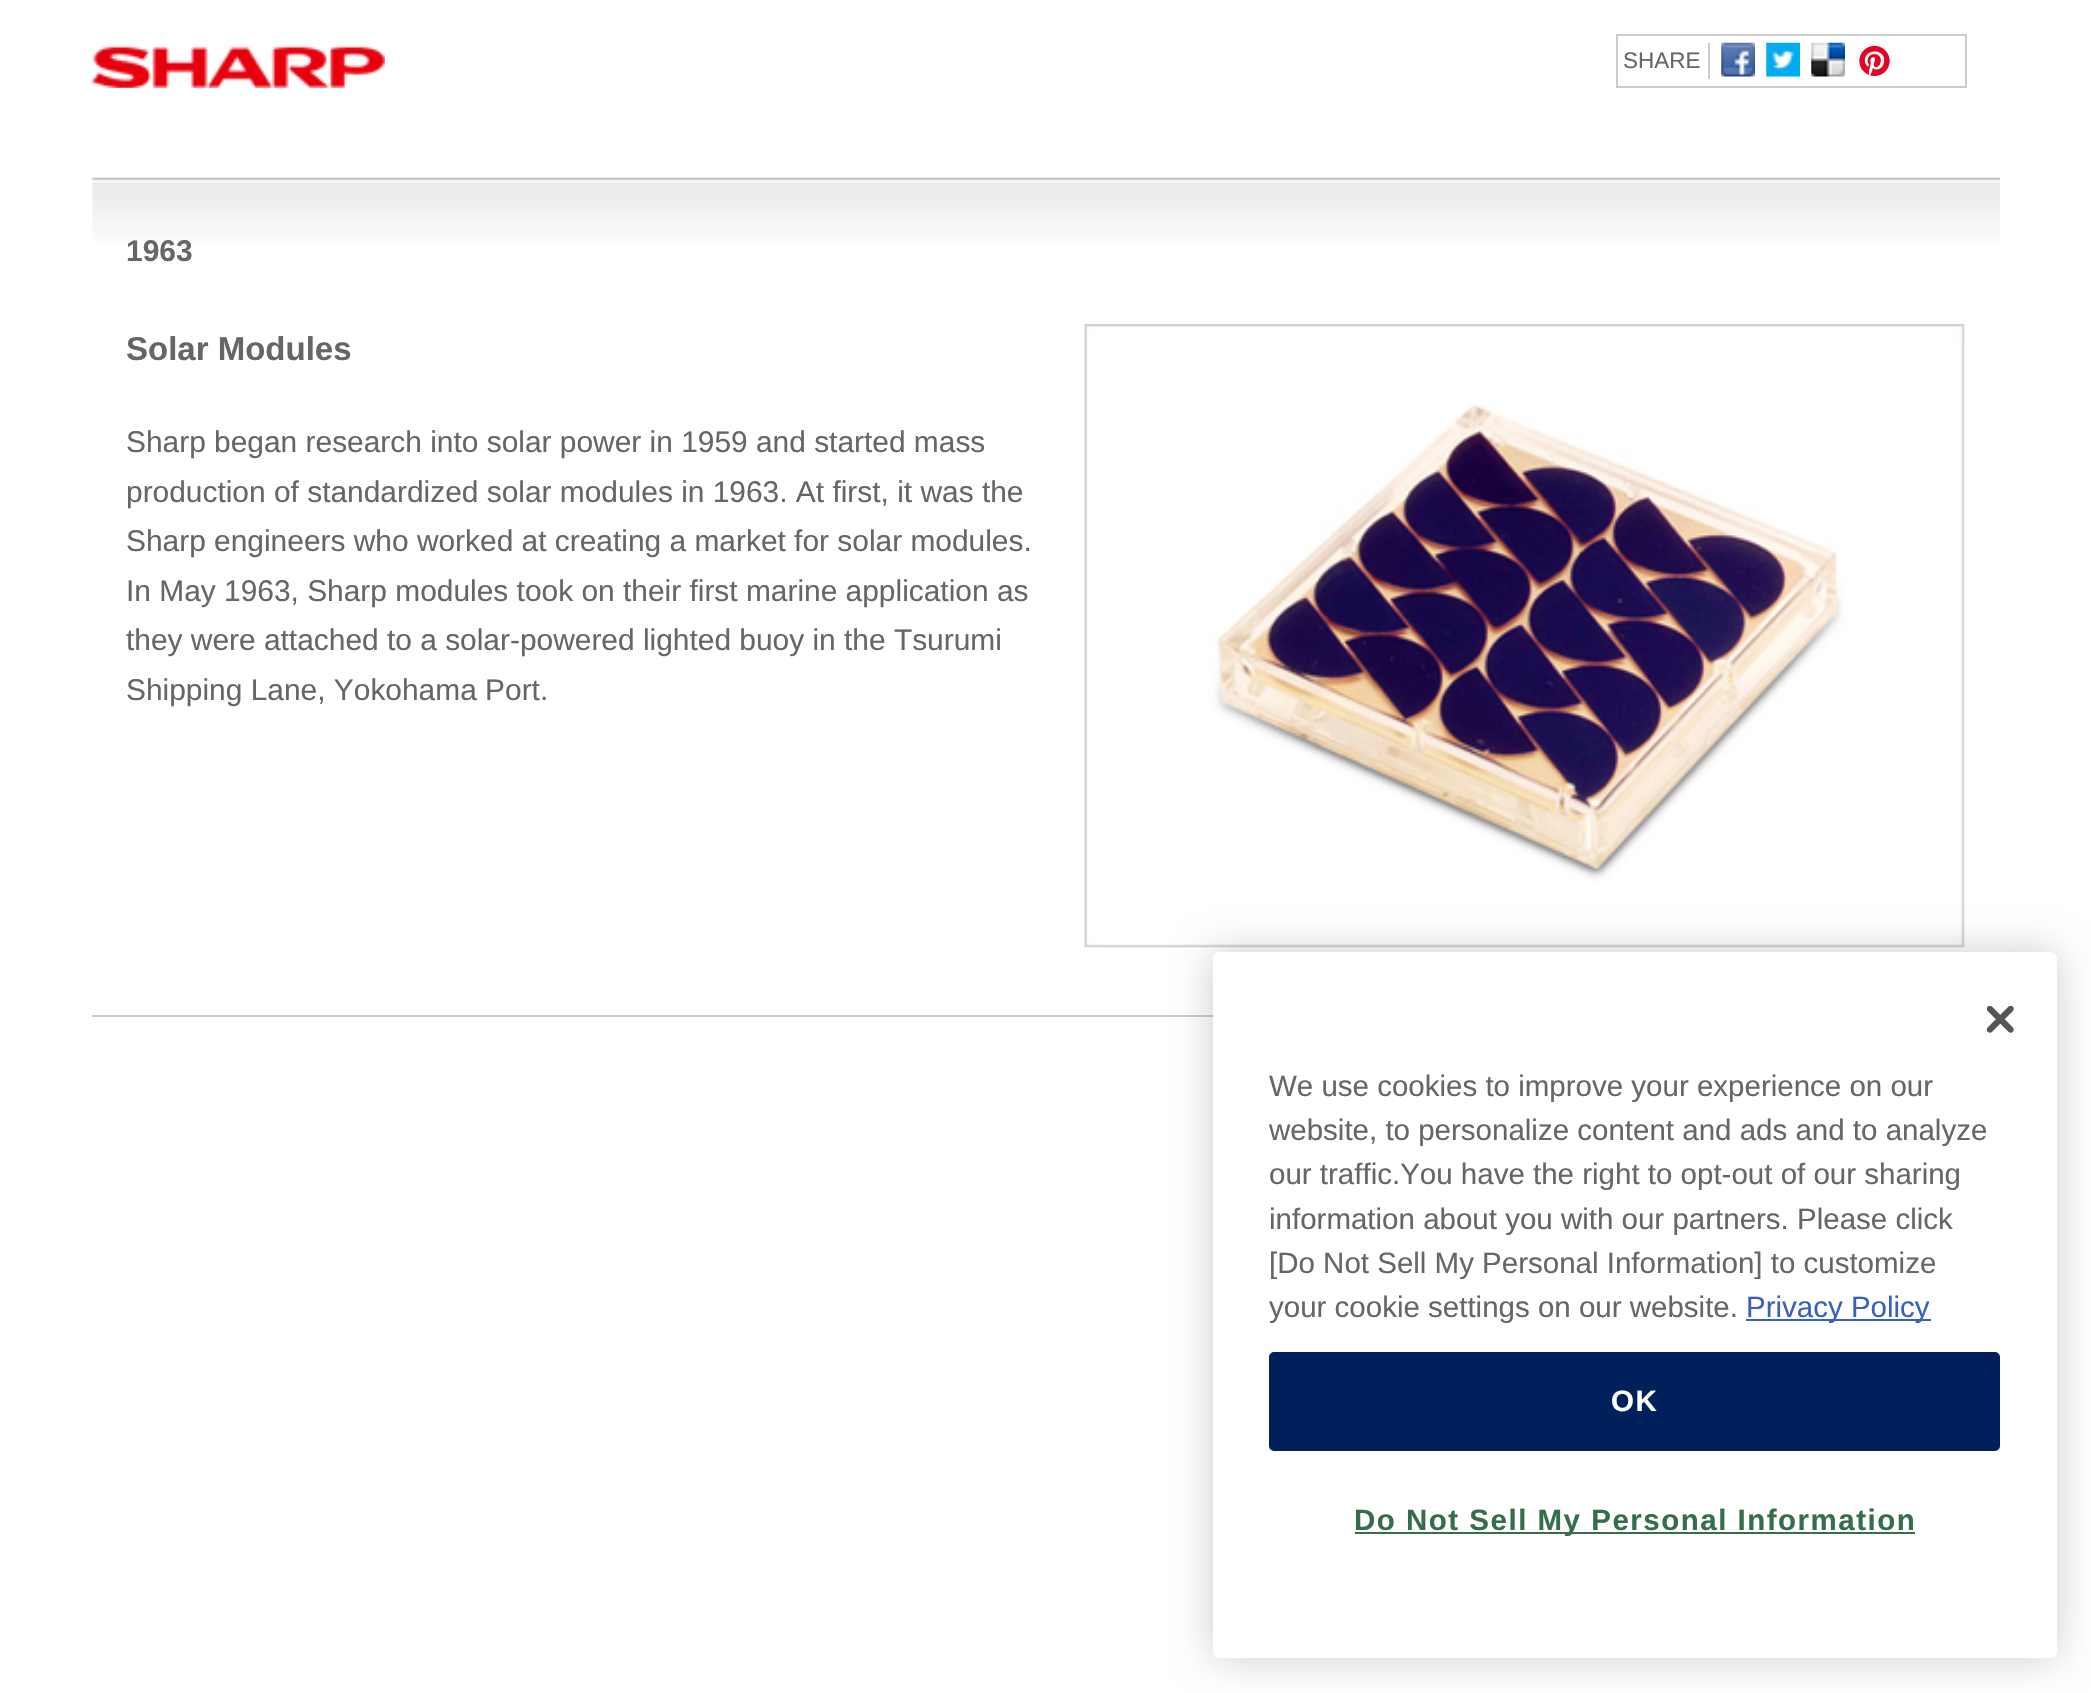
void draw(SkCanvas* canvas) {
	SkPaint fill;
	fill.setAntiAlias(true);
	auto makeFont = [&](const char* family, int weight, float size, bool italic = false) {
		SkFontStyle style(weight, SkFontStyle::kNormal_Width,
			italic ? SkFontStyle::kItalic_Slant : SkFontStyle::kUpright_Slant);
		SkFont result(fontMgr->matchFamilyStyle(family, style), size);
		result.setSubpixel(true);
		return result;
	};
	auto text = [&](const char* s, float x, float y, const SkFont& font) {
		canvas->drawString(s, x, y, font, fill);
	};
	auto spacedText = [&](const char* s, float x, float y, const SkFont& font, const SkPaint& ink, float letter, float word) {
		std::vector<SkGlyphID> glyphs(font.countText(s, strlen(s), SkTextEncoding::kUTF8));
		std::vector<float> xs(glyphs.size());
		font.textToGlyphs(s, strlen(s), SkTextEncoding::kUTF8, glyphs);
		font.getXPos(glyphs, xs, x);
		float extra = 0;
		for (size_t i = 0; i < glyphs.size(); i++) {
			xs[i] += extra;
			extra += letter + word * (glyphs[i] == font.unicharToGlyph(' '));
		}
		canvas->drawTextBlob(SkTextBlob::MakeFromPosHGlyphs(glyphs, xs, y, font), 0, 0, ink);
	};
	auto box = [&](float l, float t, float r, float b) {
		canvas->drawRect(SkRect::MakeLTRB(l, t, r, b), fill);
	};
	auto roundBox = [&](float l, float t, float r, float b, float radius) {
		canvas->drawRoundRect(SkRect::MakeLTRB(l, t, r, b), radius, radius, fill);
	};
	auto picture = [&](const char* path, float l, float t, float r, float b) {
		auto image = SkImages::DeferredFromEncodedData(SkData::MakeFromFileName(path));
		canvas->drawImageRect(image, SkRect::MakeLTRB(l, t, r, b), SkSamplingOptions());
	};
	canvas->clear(0xFFFFFFFF);
	picture("image0.png", 92, 46, 385, 88);
	fill.setStyle(SkPaint::kStroke_Style);
	fill.setStrokeWidth(2);
	fill.setColor(0xFFCCCCCC);
	canvas->drawRect(SkRect::MakeLTRB(1617, 35, 1966, 87), fill);
	fill.setStyle(SkPaint::kFill_Style);
	box(1708, 43, 1710, 79);
	picture("image1.png", 1721, 42, 1755, 77);
	picture("image2.png", 1766, 42, 1800, 77);
	picture("image3.png", 1811, 42, 1845, 77);
	picture("image4.png", 1859, 45, 1890, 76);
	picture("image5.png", 92, 177, 2001, 241);
	picture("image6.png", 1084, 324, 1965, 948);
	box(92, 1015, 1213, 1017);
	fill.setColor(0x33000000);
	fill.setMaskFilter(SkMaskFilter::MakeBlur(kNormal_SkBlurStyle, 20));
	canvas->drawRoundRect(SkRect::MakeLTRB(1213, 952, 2057, 1658), 6, 6, fill);
	fill.setMaskFilter(nullptr);
	fill.setColor(0xFFFFFFFF);
	roundBox(1213, 952, 2057, 1658, 6);
	picture("image7.png", 1987, 1006, 2014, 1033);
	fill.setColor(0xFF3860BE);
	box(1746, 1319, 1931, 1321);
	fill.setColor(0xFF00205B);
	canvas->drawRoundRect(SkRect::MakeLTRB(1270, 1353, 1999, 1450), 4, 4, fill);
	fill.setStyle(SkPaint::kStroke_Style);
	canvas->drawRoundRect(SkRect::MakeLTRB(1270, 1353, 1999, 1450), 4, 4, fill);
	fill.setStyle(SkPaint::kFill_Style);
	fill.setColor(0xFF346E4A);
	box(1355, 1532, 1915, 1534);
	auto font1 = makeFont("Liberation Sans", 400, 22.5f);
	fill.setColor(0xFF666666);
	text("SHARE", 1623, 68, font1);
	auto font2 = makeFont("Liberation Sans", 700, 29.9f);
	text("1963", 126, 261, font2);
	auto font3 = makeFont("Liberation Sans", 700, 33);
	text("Solar Modules", 126, 360, font3);
	auto font4 = makeFont("Liberation Sans", 400, 29.9f);
	text("Sharp began research into solar power in 1959 and started mass", 126, 452, font4);
	text("production of standardized solar modules in 1963. At first, it was the", 126, 502, font4);
	text("Sharp engineers who worked at creating a market for solar modules.", 126, 551, font4);
	text("In May 1963, Sharp modules took on their first marine application as", 126, 601, font4);
	text("they were attached to a solar-powered lighted buoy in the Tsurumi", 126, 650, font4);
	text("Shipping Lane, Yokohama Port.", 126, 700, font4);
	auto font5 = makeFont("Liberation Sans", 400, 29.5f);
	text("We use cookies to improve your experience on our", 1269, 1096, font5);
	text("website, to personalize content and ads and to analyze", 1269, 1140, font5);
	text("our traffic.You have the right to opt-out of our sharing", 1269, 1184, font5);
	text("information about you with our partners. Please click", 1269, 1229, font5);
	text("[Do Not Sell My Personal Information] to customize", 1269, 1273, font5);
	text("your cookie settings on our website.", 1269, 1317, font5);
	fill.setColor(0xFF3860BE);
	text("Privacy Policy", 1746, 1317, font5);
	auto font6 = makeFont("Liberation Sans", 700, 29.5f);
	fill.setColor(0xFFFFFFFF);
	spacedText("OK", 1611, 1411, font6, fill, 1.5f, 0);
	fill.setColor(0xFF346E4A);
	spacedText("Do Not Sell My Personal Information", 1354, 1530, font6, fill, 1.5f, 0);
}
